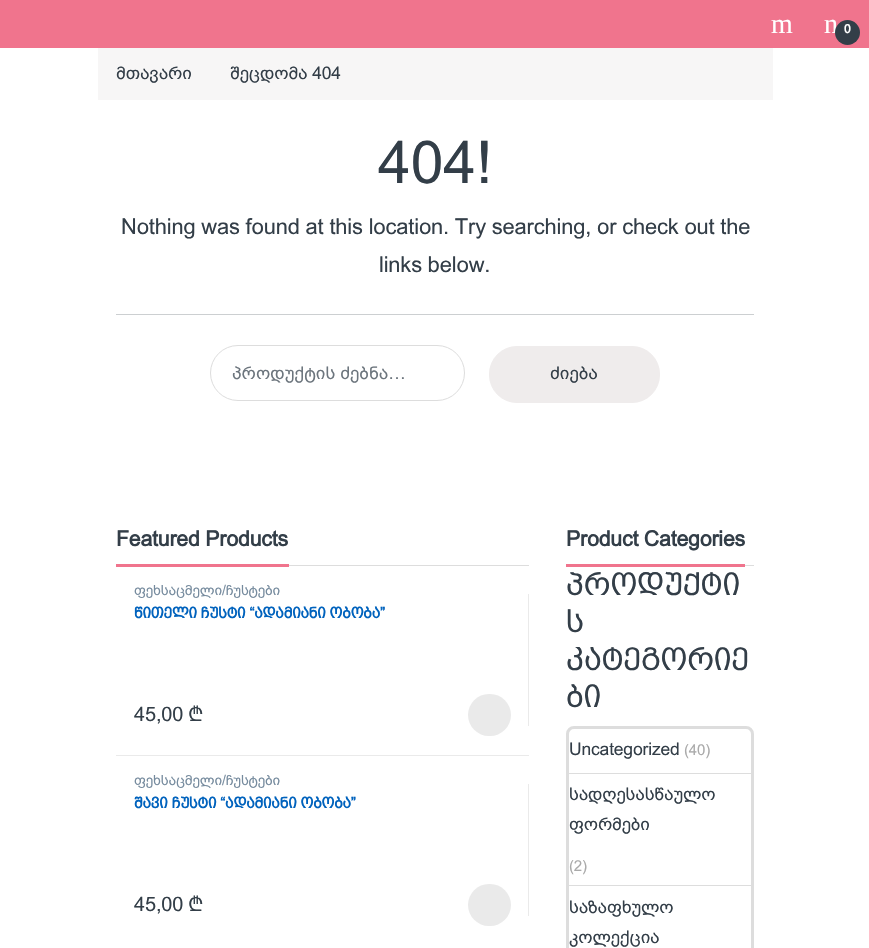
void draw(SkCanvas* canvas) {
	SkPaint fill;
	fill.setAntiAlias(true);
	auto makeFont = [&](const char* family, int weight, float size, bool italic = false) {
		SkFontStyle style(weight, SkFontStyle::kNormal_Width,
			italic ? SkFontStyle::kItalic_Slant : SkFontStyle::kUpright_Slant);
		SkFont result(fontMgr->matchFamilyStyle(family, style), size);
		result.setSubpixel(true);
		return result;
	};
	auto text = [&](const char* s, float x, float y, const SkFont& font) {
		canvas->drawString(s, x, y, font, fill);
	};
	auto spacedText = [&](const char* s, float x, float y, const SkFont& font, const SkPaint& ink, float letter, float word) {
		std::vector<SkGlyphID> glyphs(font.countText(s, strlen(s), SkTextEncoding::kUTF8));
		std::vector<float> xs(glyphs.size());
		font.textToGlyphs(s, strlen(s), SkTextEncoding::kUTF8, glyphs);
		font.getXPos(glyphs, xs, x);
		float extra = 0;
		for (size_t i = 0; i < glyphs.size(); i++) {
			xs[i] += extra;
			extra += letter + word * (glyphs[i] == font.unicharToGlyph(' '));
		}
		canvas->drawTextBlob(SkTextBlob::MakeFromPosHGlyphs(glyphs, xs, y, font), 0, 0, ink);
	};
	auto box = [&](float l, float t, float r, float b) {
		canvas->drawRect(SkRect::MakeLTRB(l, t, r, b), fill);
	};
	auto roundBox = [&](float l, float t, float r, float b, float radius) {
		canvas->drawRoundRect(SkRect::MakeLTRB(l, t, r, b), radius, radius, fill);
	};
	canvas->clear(0xFFFFFFFF);
	fill.setColor(0xFFF0748D);
	box(0, 0, 869, 48);
	fill.setColor(0xFFF7F6F6);
	box(98, 48, 773, 100);
	fill.setColor(0xFFCCCFD1);
	box(116, 314, 754, 315);
	fill.setStyle(SkPaint::kStroke_Style);
	fill.setStrokeWidth(1);
	fill.setColor(0xFFDDDDDD);
	canvas->drawRoundRect(SkRect::MakeLTRB(210.5f, 345.5f, 464.5f, 400.5f), 27.5f, 27.5f, fill);
	fill.setStyle(SkPaint::kFill_Style);
	fill.setColor(0xFFEFECEC);
	canvas->drawRoundRect(SkRect::MakeLTRB(489.5f, 346.5f, 659.5f, 402.5f), 27.5f, 27.5f, fill);
	fill.setStyle(SkPaint::kStroke_Style);
	canvas->drawRoundRect(SkRect::MakeLTRB(489.5f, 346.5f, 659.5f, 402.5f), 27.5f, 27.5f, fill);
	fill.setStyle(SkPaint::kFill_Style);
	fill.setColor(0xFFDDDDDD);
	box(289, 565, 529, 566);
	fill.setColor(0xFFF0748D);
	box(116, 564, 289, 567);
	fill.setColor(0xFFEAEAEA);
	box(116, 755, 529, 756);
	roundBox(468, 694, 511, 736, 21);
	box(528, 594, 529, 726);
	roundBox(468, 884, 511, 926, 21);
	box(528, 784, 529, 916);
	fill.setColor(0xFFDDDDDD);
	box(745, 565, 754, 566);
	fill.setColor(0xFFF0748D);
	box(566, 564, 745, 567);
	fill.setStyle(SkPaint::kStroke_Style);
	fill.setStrokeWidth(3);
	fill.setColor(0xFFDDDDDD);
	canvas->drawRoundRect(SkRect::MakeLTRB(567.5f, 727.5f, 752.5f, 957.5f), 6.5f, 6.5f, fill);
	fill.setStyle(SkPaint::kFill_Style);
	box(569, 773, 751, 774);
	box(569, 885, 751, 886);
	auto font1 = makeFont("Liberation Serif", 400, 28);
	fill.setColor(0xFFFFFFFF);
	spacedText("m", 771, 33, font1, fill, -0.18f, 0);
	spacedText("n", 824, 33, font1, fill, -0.18f, 0);
	fill.setColor(0xFF333E48);
	canvas->drawCircle(847.5f, 32.5f, 12.5f, fill);
	auto font2 = makeFont("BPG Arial", 700, 12);
	fill.setColor(0xFFFFFFFF);
	spacedText("0", 844, 33, font2, fill, -0.18f, 0);
	auto font3 = makeFont("BPG Arial", 400, 17.5f);
	fill.setColor(0xFF333E48);
	spacedText("მთავარი", 116, 79, font3, fill, -0.18f, 0);
	spacedText("შეცდომა 404", 230, 79, font3, fill, -0.18f, 0);
	auto font4 = makeFont("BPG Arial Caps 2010", 400, 59);
	spacedText("404!", 378, 183, font4, fill, -0.18f, 0);
	auto font5 = makeFont("BPG Arial", 400, 21.9f);
	spacedText("Nothing was found at this location. Try searching, or check out the", 121, 234, font5, fill, -0.18f, 0);
	spacedText("links below.", 379, 272, font5, fill, -0.18f, 0);
	fill.setColor(0xFF6C757D);
	text("პროდუქტის ძებნა…", 232, 379, font3);
	fill.setColor(0xFF333E48);
	text("ძიება", 550, 379, font3);
	auto font6 = makeFont("BPG Arial Caps 2010", 700, 21.25f);
	spacedText("Featured Products", 116, 546, font6, fill, -0.18f, 0);
	auto font7 = makeFont("BPG Arial", 400, 14);
	fill.setColor(0xFF768B9E);
	spacedText("ფეხსაცმელი/ჩუსტები", 134, 595, font7, fill, -0.18f, 0);
	auto font8 = makeFont("BPG Arial Caps 2010", 700, 15);
	fill.setColor(0xFF0062BD);
	spacedText("წითელი ჩუსტი “ადამიანი ობობა”", 134, 618, font8, fill, -0.18f, 0);
	auto font9 = makeFont("BPG Arial", 400, 20);
	fill.setColor(0xFF333E48);
	spacedText("45,00", 134, 721, font9, fill, -0.18f, 0);
	auto font10 = makeFont("Noto Sans", 400, 20);
	spacedText("₾", 188, 721, font10, fill, -0.18f, 0);
	fill.setColor(0xFF768B9E);
	spacedText("ფეხსაცმელი/ჩუსტები", 134, 785, font7, fill, -0.18f, 0);
	fill.setColor(0xFF0062BD);
	spacedText("შავი ჩუსტი “ადამიანი ობობა”", 134, 808, font8, fill, -0.18f, 0);
	fill.setColor(0xFF333E48);
	spacedText("45,00", 134, 911, font9, fill, -0.18f, 0);
	spacedText("₾", 188, 911, font10, fill, -0.18f, 0);
	spacedText("Product Categories", 566, 546, font6, fill, -0.18f, 0);
	auto font11 = makeFont("BPG Arial Caps 2010", 400, 31.25f);
	spacedText("პროდუქტი", 566, 595, font11, fill, -0.18f, 0);
	spacedText("ს", 566, 632, font11, fill, -0.18f, 0);
	spacedText("კატეგორიე", 566, 670, font11, fill, -0.18f, 0);
	spacedText("ბი", 566, 707, font11, fill, -0.18f, 0);
	spacedText("Uncategorized", 569, 755, font3, fill, -0.18f, 0);
	auto font12 = makeFont("BPG Arial", 400, 15);
	fill.setColor(0xFFAAAAAA);
	spacedText("(40)", 684, 755, font12, fill, -0.18f, 0);
	fill.setColor(0xFF333E48);
	spacedText("სადღესასწაულო", 569, 800, font3, fill, -0.18f, 0);
	spacedText("ფორმები", 569, 830, font3, fill, -0.18f, 0);
	fill.setColor(0xFFAAAAAA);
	spacedText("(2)", 569, 871, font12, fill, -0.18f, 0);
	fill.setColor(0xFF333E48);
	spacedText("საზაფხულო", 569, 913, font3, fill, -0.18f, 0);
	spacedText("კოლექცია", 569, 943, font3, fill, -0.18f, 0);
}
